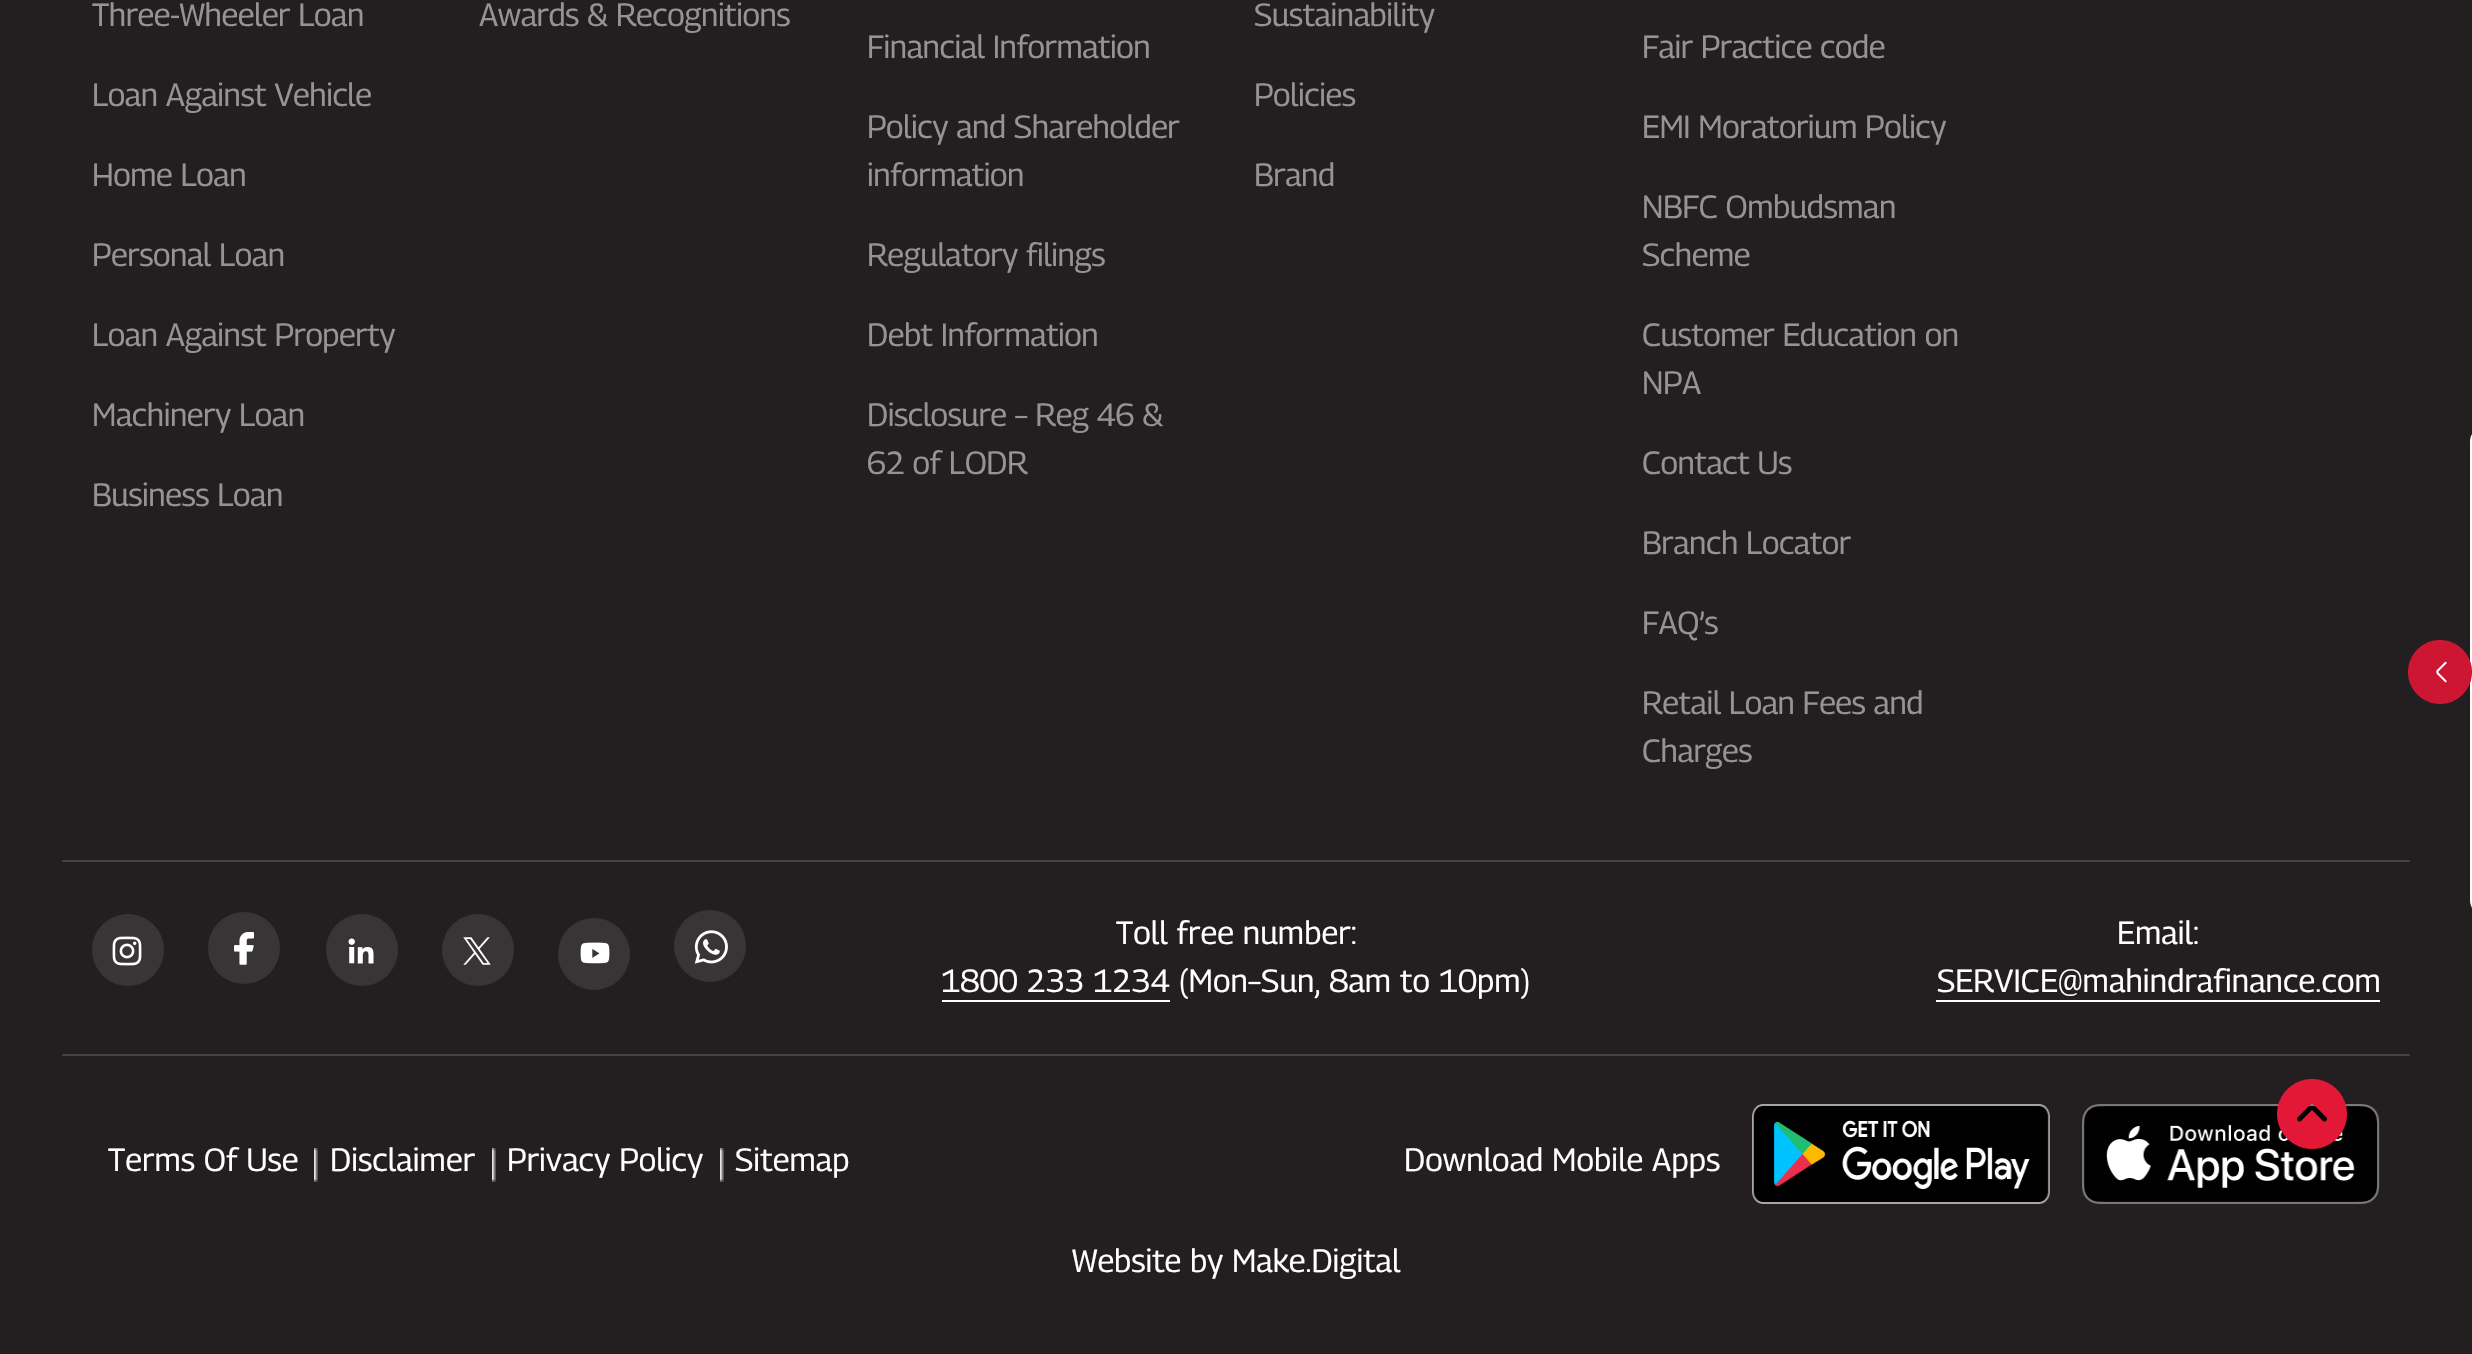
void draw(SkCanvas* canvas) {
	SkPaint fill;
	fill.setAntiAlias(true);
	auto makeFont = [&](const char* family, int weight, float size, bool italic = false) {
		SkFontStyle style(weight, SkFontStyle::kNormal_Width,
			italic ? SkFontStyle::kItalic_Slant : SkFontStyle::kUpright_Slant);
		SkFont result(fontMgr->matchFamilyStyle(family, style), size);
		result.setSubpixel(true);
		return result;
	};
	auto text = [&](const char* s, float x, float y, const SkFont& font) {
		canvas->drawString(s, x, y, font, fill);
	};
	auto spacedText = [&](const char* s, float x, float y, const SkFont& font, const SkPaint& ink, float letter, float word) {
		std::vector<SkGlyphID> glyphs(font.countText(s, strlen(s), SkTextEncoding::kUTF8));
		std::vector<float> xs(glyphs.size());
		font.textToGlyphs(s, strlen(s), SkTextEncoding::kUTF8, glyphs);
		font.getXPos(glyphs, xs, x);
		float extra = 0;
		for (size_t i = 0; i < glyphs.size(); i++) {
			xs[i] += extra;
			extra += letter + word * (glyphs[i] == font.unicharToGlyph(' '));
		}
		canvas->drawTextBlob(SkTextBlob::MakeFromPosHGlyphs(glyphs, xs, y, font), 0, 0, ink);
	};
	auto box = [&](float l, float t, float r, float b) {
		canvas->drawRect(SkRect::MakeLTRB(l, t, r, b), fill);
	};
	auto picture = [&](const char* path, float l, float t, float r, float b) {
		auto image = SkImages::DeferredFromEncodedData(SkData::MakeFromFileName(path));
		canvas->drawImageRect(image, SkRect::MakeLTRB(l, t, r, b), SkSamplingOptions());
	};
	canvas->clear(0xFF231F20);
	fill.setColor(0xFF444141);
	box(62, 860, 2410, 862);
	box(62, 1054, 2410, 1056);
	fill.setColor(0xFF393536);
	canvas->drawCircle(128, 950, 36, fill);
	picture("image0.png", 112, 936, 142, 966);
	canvas->drawCircle(244, 948, 36, fill);
	picture("image1.png", 234, 932, 254, 965);
	canvas->drawCircle(362, 950, 36, fill);
	picture("image2.png", 348, 938, 374, 964);
	canvas->drawCircle(478, 950, 36, fill);
	picture("image3.png", 463, 937, 491, 965);
	canvas->drawCircle(594, 954, 36, fill);
	picture("image4.png", 580, 942, 610, 964);
	canvas->drawCircle(710, 946, 36, fill);
	picture("image5.png", 694, 930, 728, 964);
	fill.setColor(0xFFFFFFFF);
	box(942, 1000, 1170, 1002);
	box(1936, 1000, 2380, 1002);
	picture("image6.png", 314, 1148, 318, 1182);
	picture("image6.png", 492, 1148, 496, 1182);
	picture("image6.png", 720, 1148, 724, 1182);
	picture("image7.png", 1752, 1104, 2050, 1204);
	picture("image8.png", 2082, 1104, 2380, 1204);
	canvas->drawPath(SkPathBuilder(SkPathFillType::kEvenOdd).moveTo(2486, 426).lineTo(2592, 426).lineTo(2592, 916).lineTo(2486, 916).cubicTo(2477, 916, 2470, 909, 2470, 900).lineTo(2470, 442).cubicTo(2470, 433, 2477, 426, 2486, 426).close().moveTo(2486, 428).lineTo(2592, 428).lineTo(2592, 914).lineTo(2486, 914).cubicTo(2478, 914, 2472, 908, 2472, 900).lineTo(2472, 442).cubicTo(2472, 434, 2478, 428, 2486, 428).close().detach(), fill);
	picture("image9.png", 2408, 640, 2472, 704);
	picture("image10.png", 2277, 1079, 2347, 1149);
	auto font1 = makeFont("Georama", 400, 32);
	fill.setColor(0xFF949495);
	spacedText("Three-Wheeler Loan", 92, 26, font1, fill, -0.45f, 0);
	spacedText("Loan Against Vehicle", 92, 106, font1, fill, -0.45f, 0);
	spacedText("Home Loan", 92, 186, font1, fill, -0.45f, 0);
	spacedText("Personal Loan", 92, 266, font1, fill, -0.45f, 0);
	spacedText("Loan Against Property", 92, 346, font1, fill, -0.45f, 0);
	spacedText("Machinery Loan", 92, 426, font1, fill, -0.45f, 0);
	spacedText("Business Loan", 92, 506, font1, fill, -0.45f, 0);
	spacedText("Awards & Recognitions", 479, 26, font1, fill, -0.45f, 0);
	spacedText("Financial Information", 867, 58, font1, fill, -0.45f, 0);
	spacedText("Policy and Shareholder", 867, 138, font1, fill, -0.45f, 0);
	spacedText("information", 867, 186, font1, fill, -0.45f, 0);
	spacedText("Regulatory filings", 867, 266, font1, fill, -0.45f, 0);
	spacedText("Debt Information", 867, 346, font1, fill, -0.45f, 0);
	spacedText("Disclosure – Reg 46 &", 867, 426, font1, fill, -0.45f, 0);
	spacedText("62 of LODR", 867, 474, font1, fill, -0.45f, 0);
	spacedText("Sustainability", 1254, 26, font1, fill, -0.45f, 0);
	spacedText("Policies", 1254, 106, font1, fill, -0.45f, 0);
	spacedText("Brand", 1254, 186, font1, fill, -0.45f, 0);
	spacedText("Fair Practice code", 1642, 58, font1, fill, -0.45f, 0);
	spacedText("EMI Moratorium Policy", 1642, 138, font1, fill, -0.45f, 0);
	spacedText("NBFC Ombudsman", 1642, 218, font1, fill, -0.45f, 0);
	spacedText("Scheme", 1642, 266, font1, fill, -0.45f, 0);
	spacedText("Customer Education on", 1642, 346, font1, fill, -0.45f, 0);
	spacedText("NPA", 1642, 394, font1, fill, -0.45f, 0);
	spacedText("Contact Us", 1642, 474, font1, fill, -0.45f, 0);
	spacedText("Branch Locator", 1642, 554, font1, fill, -0.45f, 0);
	spacedText("FAQ’s", 1642, 634, font1, fill, -0.45f, 0);
	spacedText("Retail Loan Fees and", 1642, 714, font1, fill, -0.45f, 0);
	spacedText("Charges", 1642, 762, font1, fill, -0.45f, 0);
	fill.setColor(0xFFFFFFFF);
	spacedText("Toll free number:", 1116, 944, font1, fill, 0.1f, 0);
	spacedText("1800 233 1234 (Mon–Sun, 8am to 10pm)", 941, 992, font1, fill, 0.1f, 0);
	spacedText("Email:", 2117, 944, font1, fill, 0.1f, 0);
	spacedText("SERVICE@mahindrafinance.com", 1937, 992, font1, fill, 0.1f, 0);
	spacedText("Terms Of Use", 108, 1171, font1, fill, 0.1f, 0);
	spacedText("Disclaimer", 330, 1171, font1, fill, 0.1f, 0);
	spacedText("Privacy Policy", 507, 1171, font1, fill, 0.1f, 0);
	spacedText("Sitemap", 735, 1171, font1, fill, 0.1f, 0);
	spacedText("Download Mobile Apps", 1404, 1171, font1, fill, 0.1f, 0);
	text("Website by Make.Digital", 1072, 1272, font1);
}
